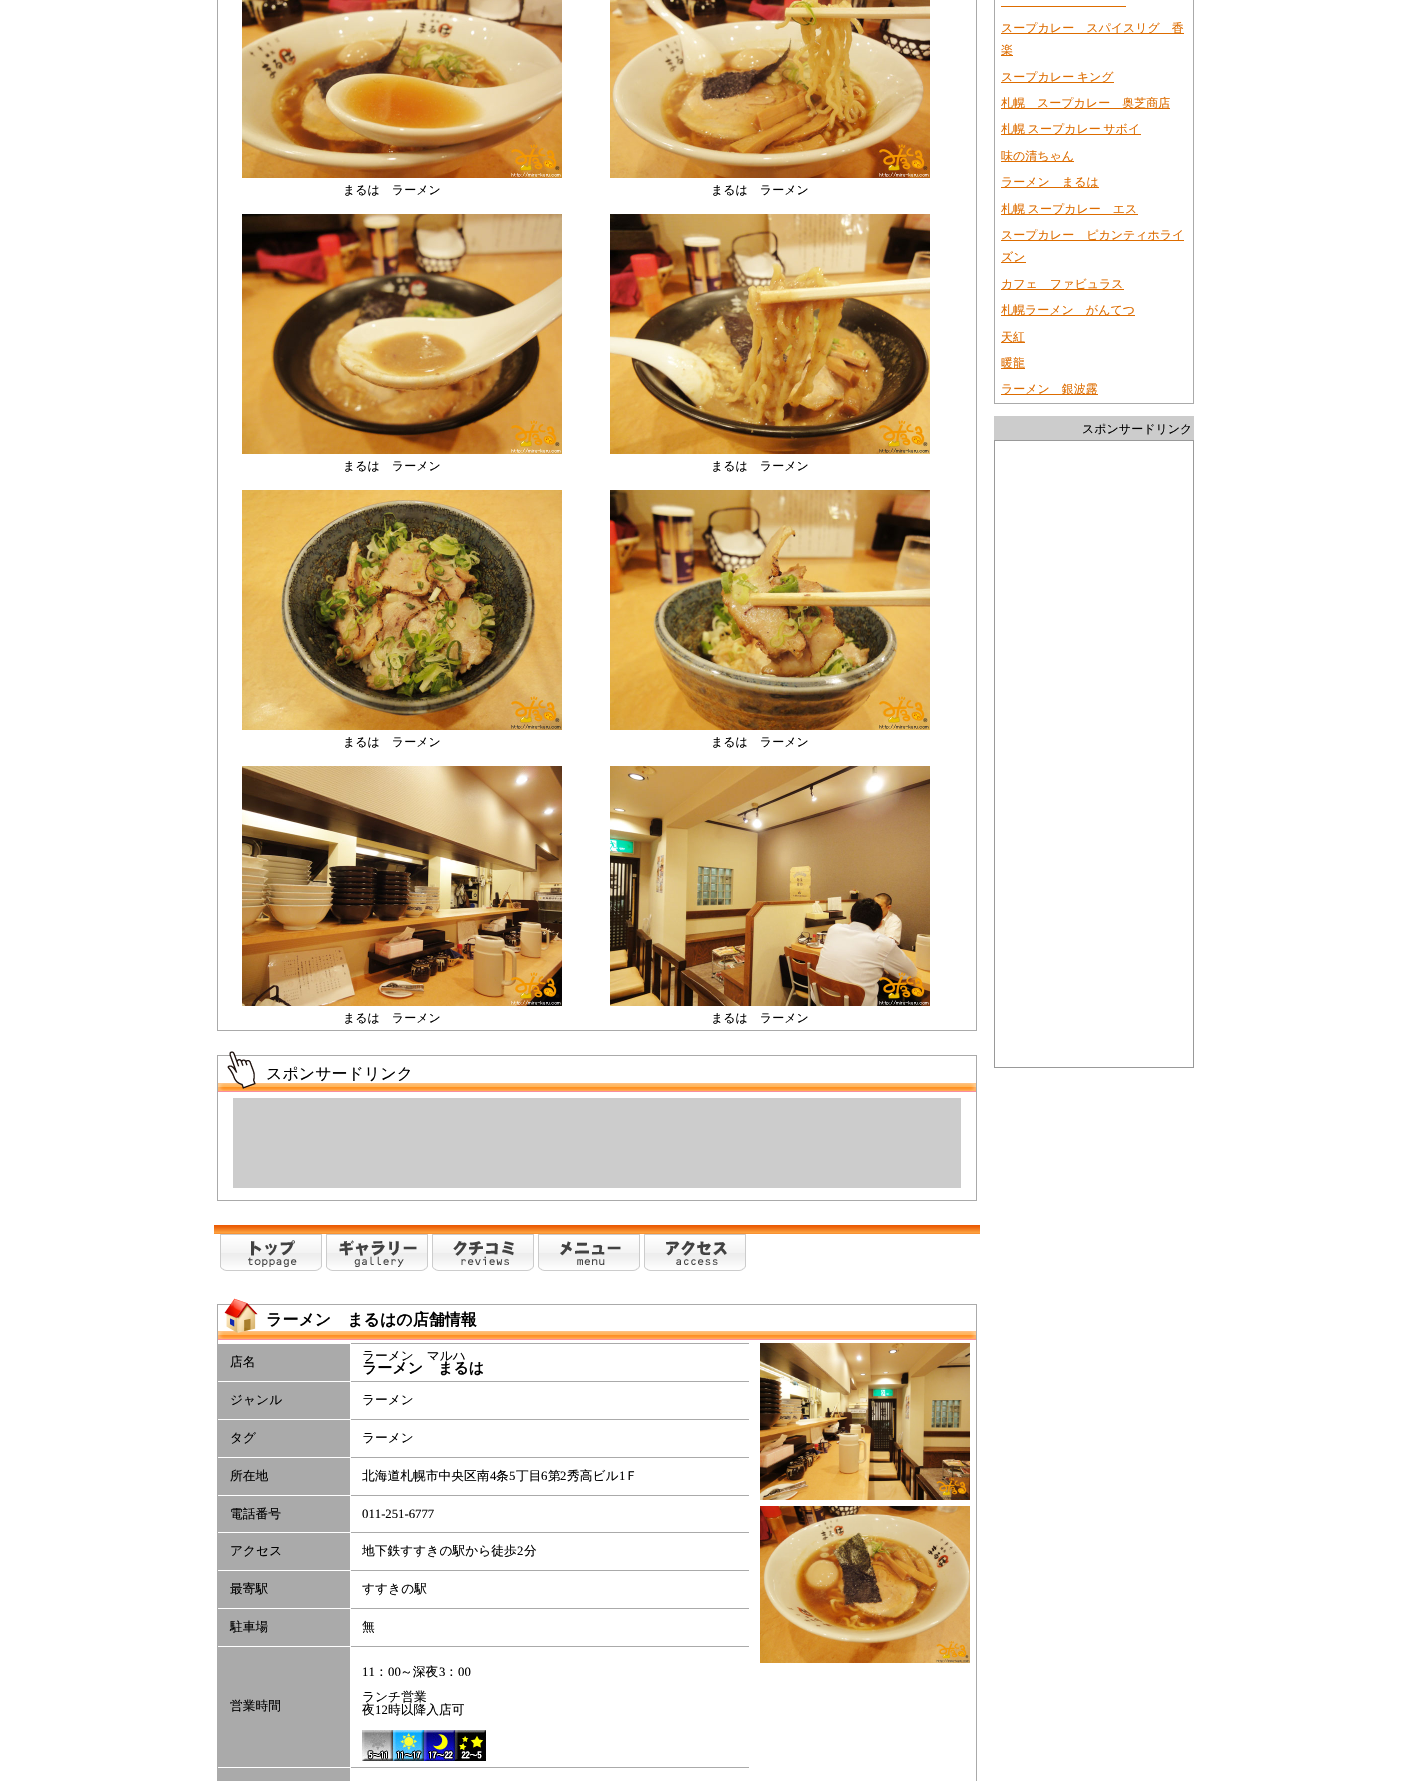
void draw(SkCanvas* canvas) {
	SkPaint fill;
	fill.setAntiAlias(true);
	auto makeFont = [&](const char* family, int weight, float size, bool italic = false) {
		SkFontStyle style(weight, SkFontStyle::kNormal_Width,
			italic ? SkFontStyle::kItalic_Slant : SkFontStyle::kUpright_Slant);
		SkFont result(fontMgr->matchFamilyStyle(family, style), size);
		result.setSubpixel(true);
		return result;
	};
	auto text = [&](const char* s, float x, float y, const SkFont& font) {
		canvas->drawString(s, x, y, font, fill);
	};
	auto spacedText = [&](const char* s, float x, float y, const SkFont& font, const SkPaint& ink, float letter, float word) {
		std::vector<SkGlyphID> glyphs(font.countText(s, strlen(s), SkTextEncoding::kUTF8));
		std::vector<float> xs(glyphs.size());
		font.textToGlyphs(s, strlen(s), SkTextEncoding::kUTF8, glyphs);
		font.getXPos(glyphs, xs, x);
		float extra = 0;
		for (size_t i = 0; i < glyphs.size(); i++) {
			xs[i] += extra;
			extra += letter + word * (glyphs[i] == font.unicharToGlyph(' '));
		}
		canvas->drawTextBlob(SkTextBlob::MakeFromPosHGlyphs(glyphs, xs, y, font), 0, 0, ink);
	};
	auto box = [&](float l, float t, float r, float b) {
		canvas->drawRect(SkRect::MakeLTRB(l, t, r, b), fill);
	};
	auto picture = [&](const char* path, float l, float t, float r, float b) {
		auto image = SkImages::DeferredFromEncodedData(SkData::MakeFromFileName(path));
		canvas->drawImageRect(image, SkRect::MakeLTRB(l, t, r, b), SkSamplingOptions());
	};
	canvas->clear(0xFFFFFFFF);
	fill.setStyle(SkPaint::kStroke_Style);
	fill.setStrokeWidth(1);
	fill.setColor(0xFFAAAAAA);
	canvas->drawRect(SkRect::MakeLTRB(217.5f, -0.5f, 976.5f, 1030.5f), fill);
	picture("image0.png", 242, 0, 562, 178);
	picture("image1.png", 610, 0, 930, 178);
	picture("image2.png", 242, 214, 562, 454);
	picture("image3.png", 610, 214, 930, 454);
	picture("image4.png", 242, 490, 562, 730);
	picture("image5.png", 610, 490, 930, 730);
	picture("image6.png", 242, 766, 562, 1006);
	picture("image7.png", 610, 766, 930, 1006);
	canvas->drawRect(SkRect::MakeLTRB(217.5f, 1055.5f, 976.5f, 1200.5f), fill);
	picture("image8.png", 218, 1051, 976, 1092);
	fill.setStyle(SkPaint::kFill_Style);
	fill.setColor(0xFFCCCCCC);
	box(233, 1098, 961, 1188);
	picture("image9.png", 214, 1225, 980, 1234);
	picture("image10.png", 220, 1234, 322, 1271);
	picture("image11.png", 326, 1234, 428, 1271);
	picture("image12.png", 432, 1234, 534, 1271);
	picture("image13.png", 538, 1234, 640, 1271);
	picture("image14.png", 644, 1234, 746, 1271);
	fill.setStyle(SkPaint::kStroke_Style);
	fill.setColor(0xFFAAAAAA);
	canvas->drawRect(SkRect::MakeLTRB(217.5f, 1304.5f, 976.5f, 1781.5f), fill);
	picture("image15.png", 218, 1298, 976, 1340);
	fill.setStyle(SkPaint::kFill_Style);
	box(218, 1344, 350, 1381);
	box(350, 1343, 749, 1344);
	fill.setColor(0xFFFFFFFF);
	box(350, 1343, 351, 1344);
	fill.setColor(0xFFAAAAAA);
	box(218, 1382, 350, 1419);
	box(350, 1381, 749, 1382);
	fill.setColor(0xFFFFFFFF);
	box(350, 1381, 351, 1382);
	fill.setColor(0xFFAAAAAA);
	box(218, 1420, 350, 1457);
	box(350, 1419, 749, 1420);
	fill.setColor(0xFFFFFFFF);
	box(350, 1419, 351, 1420);
	fill.setColor(0xFFAAAAAA);
	box(218, 1458, 350, 1495);
	box(350, 1457, 749, 1458);
	fill.setColor(0xFFFFFFFF);
	box(350, 1457, 351, 1458);
	fill.setColor(0xFFAAAAAA);
	box(218, 1496, 350, 1532);
	box(350, 1495, 749, 1496);
	fill.setColor(0xFFFFFFFF);
	box(350, 1495, 351, 1496);
	fill.setColor(0xFFAAAAAA);
	box(218, 1533, 350, 1570);
	box(350, 1532, 749, 1533);
	fill.setColor(0xFFFFFFFF);
	box(350, 1532, 351, 1533);
	fill.setColor(0xFFAAAAAA);
	box(218, 1571, 350, 1608);
	box(350, 1570, 749, 1571);
	fill.setColor(0xFFFFFFFF);
	box(350, 1570, 351, 1571);
	fill.setColor(0xFFAAAAAA);
	box(218, 1609, 350, 1646);
	box(350, 1608, 749, 1609);
	fill.setColor(0xFFFFFFFF);
	box(350, 1608, 351, 1609);
	fill.setColor(0xFFAAAAAA);
	box(218, 1647, 350, 1767);
	box(350, 1646, 749, 1647);
	fill.setColor(0xFFFFFFFF);
	box(350, 1646, 351, 1647);
	picture("image16.png", 362, 1730, 393, 1761);
	picture("image17.png", 393, 1730, 424, 1761);
	picture("image18.png", 424, 1730, 455, 1761);
	picture("image19.png", 455, 1730, 486, 1761);
	fill.setColor(0xFFAAAAAA);
	box(218, 1768, 350, 1781);
	box(350, 1767, 749, 1768);
	fill.setColor(0xFFFFFFFF);
	box(350, 1767, 351, 1768);
	picture("image20.png", 760, 1343, 970, 1500);
	picture("image21.png", 760, 1506, 970, 1663);
	fill.setStyle(SkPaint::kStroke_Style);
	fill.setColor(0xFFAAAAAA);
	canvas->drawRect(SkRect::MakeLTRB(994.5f, -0.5f, 1193.5f, 403.5f), fill);
	fill.setStyle(SkPaint::kFill_Style);
	fill.setColor(0xFFDD6C00);
	box(1001, 6, 1126, 7);
	box(1001, 33, 1184, 34);
	box(1001, 55, 1013, 56);
	box(1001, 82, 1114, 83);
	box(1001, 108, 1170, 109);
	box(1001, 134, 1141, 135);
	box(1001, 161, 1074, 162);
	box(1001, 187, 1099, 188);
	box(1001, 214, 1138, 215);
	box(1001, 240, 1184, 241);
	box(1001, 262, 1026, 263);
	box(1001, 289, 1124, 290);
	box(1001, 315, 1135, 316);
	box(1001, 342, 1025, 343);
	box(1001, 368, 1025, 369);
	box(1001, 394, 1098, 395);
	fill.setColor(0xFFCCCCCC);
	box(994, 416, 1194, 440);
	fill.setStyle(SkPaint::kStroke_Style);
	fill.setColor(0xFF999999);
	canvas->drawRect(SkRect::MakeLTRB(994.5f, 440.5f, 1193.5f, 1067.5f), fill);
	auto font1 = makeFont("WenQuanYi Zen Hei", 500, 12);
	fill.setStyle(SkPaint::kFill_Style);
	fill.setColor(0xFF000000);
	text("まるは　ラーメン", 343, 194, font1);
	text("まるは　ラーメン", 711, 194, font1);
	text("まるは　ラーメン", 343, 470, font1);
	text("まるは　ラーメン", 711, 470, font1);
	text("まるは　ラーメン", 343, 746, font1);
	text("まるは　ラーメン", 711, 746, font1);
	text("まるは　ラーメン", 343, 1022, font1);
	text("まるは　ラーメン", 711, 1022, font1);
	auto font2 = makeFont("WenQuanYi Zen Hei", 500, 16);
	text("スポンサードリンク", 266, 1079, font2);
	auto font3 = makeFont("WenQuanYi Zen Hei", 700, 16);
	text("ラーメン　まるはの店舗情報", 266, 1325, font3);
	auto font4 = makeFont("WenQuanYi Zen Hei", 500, 12.75f);
	text("店名", 230, 1366, font4);
	text("ラーメン　マルハ", 362, 1360, font4);
	auto font5 = makeFont("WenQuanYi Zen Hei", 700, 15);
	text("ラーメン　まるは", 362, 1373, font5);
	text("ジャンル", 230, 1404, font4);
	text("ラーメン", 362, 1404, font4);
	text("タグ", 230, 1442, font4);
	text("ラーメン", 362, 1442, font4);
	text("所在地", 230, 1480, font4);
	text("北海道札幌市中央区南", 362, 1480, font4);
	auto font6 = makeFont("Liberation Serif", 400, 12.75f);
	text("4", 490, 1480, font6);
	text("条", 496, 1480, font4);
	text("5", 509, 1480, font6);
	text("丁目", 516, 1480, font4);
	text("6", 541, 1480, font6);
	text("第", 548, 1480, font4);
	text("2", 560, 1480, font6);
	text("秀高ビル", 567, 1480, font4);
	text("1", 619, 1480, font6);
	text("Ｆ", 625, 1480, font4);
	text("電話番号", 230, 1518, font4);
	text("011-251-6777", 362, 1518, font6);
	text("アクセス", 230, 1555, font4);
	text("地下鉄すすきの駅から徒歩", 362, 1555, font4);
	text("2", 517, 1555, font6);
	text("分", 524, 1555, font4);
	text("最寄駅", 230, 1593, font4);
	text("すすきの駅", 362, 1593, font4);
	text("駐車場", 230, 1631, font4);
	text("無", 362, 1631, font4);
	text("営業時間", 230, 1710, font4);
	text("11", 362, 1676, font6);
	text("：", 375, 1676, font4);
	text("00", 388, 1676, font6);
	text("～深夜", 400, 1676, font4);
	text("3", 439, 1676, font6);
	text("：", 445, 1676, font4);
	text("00", 458, 1676, font6);
	text("ランチ営業", 362, 1701, font4);
	text("夜", 362, 1714, font4);
	text("12", 375, 1714, font6);
	text("時以降入店可", 388, 1714, font4);
	fill.setColor(0xFFDD6C00);
	text("スープカレー　スパイスリグ　香", 1001, 32, font1);
	text("楽", 1001, 54, font1);
	spacedText("スープカレー キング", 1001, 81, font1, fill, 0, -1);
	text("札幌　スープカレー　奥芝商店", 1001, 107, font1);
	spacedText("札幌 スープカレー サボイ", 1001, 133, font1, fill, 0, -1);
	text("味の清ちゃん", 1001, 160, font1);
	text("ラーメン　まるは", 1001, 186, font1);
	spacedText("札幌 スープカレー　エス", 1001, 213, font1, fill, 0, -1);
	text("スープカレー　ピカンティホライ", 1001, 239, font1);
	text("ズン", 1001, 261, font1);
	text("カフェ　ファビュラス", 1001, 288, font1);
	text("札幌ラーメン　がんてつ", 1001, 314, font1);
	text("天紅", 1001, 341, font1);
	text("暖龍", 1001, 367, font1);
	text("ラーメン　銀波露", 1001, 393, font1);
	fill.setColor(0xFF000000);
	text("スポンサードリンク", 1082, 433, font1);
}
